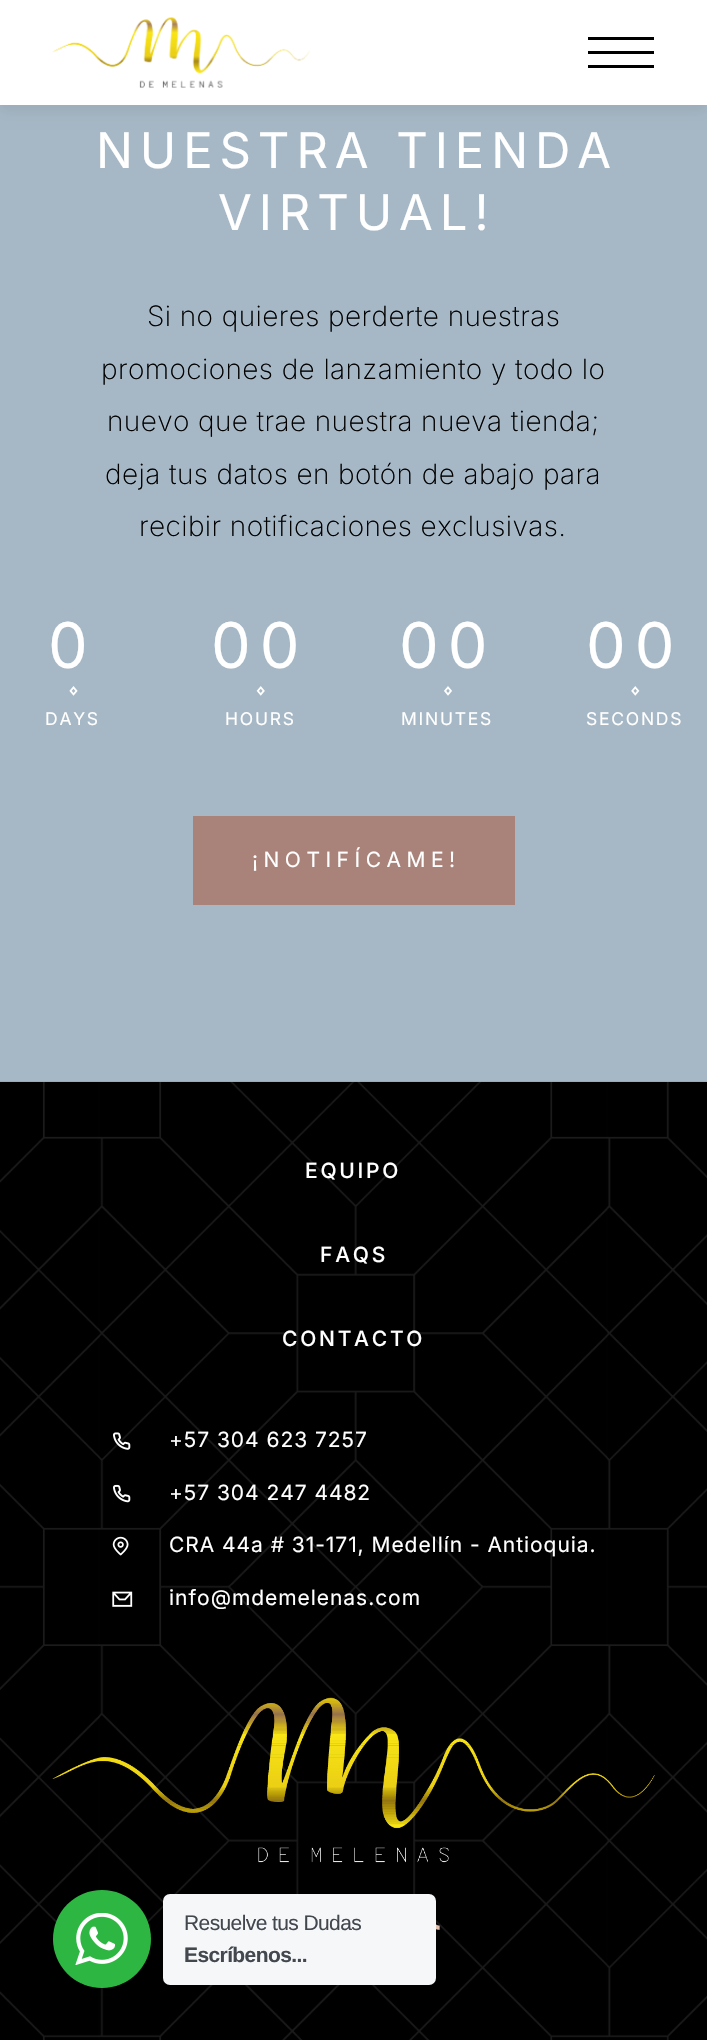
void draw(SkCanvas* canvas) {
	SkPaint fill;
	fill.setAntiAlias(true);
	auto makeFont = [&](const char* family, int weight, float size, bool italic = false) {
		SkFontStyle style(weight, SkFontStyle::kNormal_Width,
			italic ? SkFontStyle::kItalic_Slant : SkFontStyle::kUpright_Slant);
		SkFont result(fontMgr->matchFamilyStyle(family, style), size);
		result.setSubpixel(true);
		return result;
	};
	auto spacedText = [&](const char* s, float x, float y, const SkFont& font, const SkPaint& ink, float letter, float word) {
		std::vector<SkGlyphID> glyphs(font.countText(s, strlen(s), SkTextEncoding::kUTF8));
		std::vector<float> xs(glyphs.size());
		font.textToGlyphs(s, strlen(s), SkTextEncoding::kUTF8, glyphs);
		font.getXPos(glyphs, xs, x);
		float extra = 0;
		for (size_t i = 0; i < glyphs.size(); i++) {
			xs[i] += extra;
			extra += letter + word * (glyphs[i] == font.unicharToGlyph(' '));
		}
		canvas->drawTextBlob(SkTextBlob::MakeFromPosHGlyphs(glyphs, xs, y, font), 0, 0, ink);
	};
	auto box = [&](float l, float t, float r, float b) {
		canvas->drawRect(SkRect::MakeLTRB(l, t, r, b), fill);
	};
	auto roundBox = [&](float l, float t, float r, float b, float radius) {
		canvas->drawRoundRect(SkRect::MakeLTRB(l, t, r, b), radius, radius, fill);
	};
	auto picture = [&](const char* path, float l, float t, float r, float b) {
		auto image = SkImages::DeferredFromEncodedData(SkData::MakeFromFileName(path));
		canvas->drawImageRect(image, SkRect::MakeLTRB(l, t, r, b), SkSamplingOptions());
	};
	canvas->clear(0xFFA6B7C5);
	fill.setColor(0x0F000000);
	fill.setMaskFilter(SkMaskFilter::MakeBlur(kNormal_SkBlurStyle, 6));
	canvas->drawRect(SkRect::MakeLTRB(0, 7, 707, 112), fill);
	fill.setMaskFilter(nullptr);
	fill.setColor(0xFFFFFFFF);
	box(0, 0, 707, 105);
	picture("image0.png", 52, 17, 310, 88);
	fill.setColor(0xFF000000);
	canvas->drawPath(SkPathBuilder().moveTo(654, 65).lineTo(654, 68).lineTo(588, 68).lineTo(588, 65).close().moveTo(654, 51).lineTo(654, 54).lineTo(588, 54).lineTo(588, 51).close().moveTo(654, 37).lineTo(654, 40).lineTo(588, 40).lineTo(588, 37).close().detach(), fill);
	picture("image1.png", 69, 686, 78, 696);
	picture("image2.png", 256, 686, 265, 696);
	picture("image3.png", 444, 686, 452, 696);
	picture("image4.png", 631, 686, 640, 696);
	fill.setColor(0xFFA9837A);
	box(193, 816, 515, 905);
	picture("image5.png", 0, 1081, 707, 2040);
	picture("image6.png", 113, 1432, 131, 1450);
	picture("image7.png", 113, 1484, 131, 1503);
	picture("image8.png", 112, 1536, 129, 1556);
	picture("image9.png", 112, 1591, 133, 1607);
	picture("image10.png", 52, 1697, 655, 1863);
	picture("image11.png", 436, 1924, 440, 1930);
	fill.setColor(0xFF2DB742);
	canvas->drawCircle(102, 1939, 49, fill);
	picture("image12.png", 75, 1913, 128, 1965);
	fill.setColor(0xFFF5F7F9);
	roundBox(163, 1894, 436, 1985, 7);
	auto font1 = makeFont("Inter", 400, 49);
	fill.setColor(0xFFFFFFFF);
	spacedText("NUESTRA TIENDA", 96, 168, font1, fill, 6.9f, 0);
	spacedText("VIRTUAL!", 218, 230, font1, fill, 6.9f, 0);
	auto font2 = makeFont("Inter", 200, 28);
	fill.setColor(0xFF000000);
	spacedText("Si no quieres perderte nuestras", 147, 326, font2, fill, 0.4f, 0);
	spacedText("promociones de lanzamiento y todo lo", 101, 379, font2, fill, 0.4f, 0);
	spacedText("nuevo que trae nuestra nueva tienda;", 107, 431, font2, fill, 0.4f, 0);
	spacedText("deja tus datos en botón de abajo para", 105, 484, font2, fill, 0.4f, 0);
	spacedText("recibir notificaciones exclusivas.", 139, 536, font2, fill, 0.4f, 0);
	auto font3 = makeFont("Inter", 400, 63);
	fill.setColor(0xFFFFFFFF);
	spacedText("0", 48, 668, font3, fill, 9, 0);
	auto font4 = makeFont("Inter", 400, 17.5f);
	spacedText("DAYS", 45, 725, font4, fill, 1.75f, 0);
	spacedText("00", 211, 668, font3, fill, 9, 0);
	spacedText("HOURS", 225, 725, font4, fill, 1.75f, 0);
	spacedText("00", 399, 668, font3, fill, 9, 0);
	spacedText("MINUTES", 401, 725, font4, fill, 1.75f, 0);
	spacedText("00", 586, 668, font3, fill, 9, 0);
	spacedText("SECONDS", 586, 725, font4, fill, 1.75f, 0);
	auto font5 = makeFont("Inter", 400, 21);
	spacedText("¡NOTIFÍCAME!", 252, 867, font5, fill, 5.5f, 0);
	auto font6 = makeFont("Inter", 500, 21);
	spacedText("EQUIPO", 305, 1178, font6, fill, 2.75f, 0);
	spacedText("FAQS", 320, 1262, font6, fill, 2.75f, 0);
	spacedText("CONTACTO", 282, 1346, font6, fill, 2.75f, 0);
	spacedText("+57 304 623 7257", 169, 1447, font5, fill, 0.95f, 0);
	spacedText("+57 304 247 4482", 169, 1500, font5, fill, 0.95f, 0);
	spacedText("CRA 44a # 31-171, Medellín - Antioquia.", 169, 1552, font5, fill, 0.95f, 0);
	spacedText("info@mdemelenas.com", 169, 1605, font5, fill, 0.95f, 0);
	auto font7 = makeFont("Liberation Sans", 400, 21);
	fill.setColor(0xFF43474E);
	spacedText("Resuelve tus Dudas", 184, 1930, font7, fill, -0.6f, 0);
	auto font8 = makeFont("Liberation Sans", 700, 21);
	spacedText("Escríbenos...", 184, 1962, font8, fill, -0.6f, 0);
}
